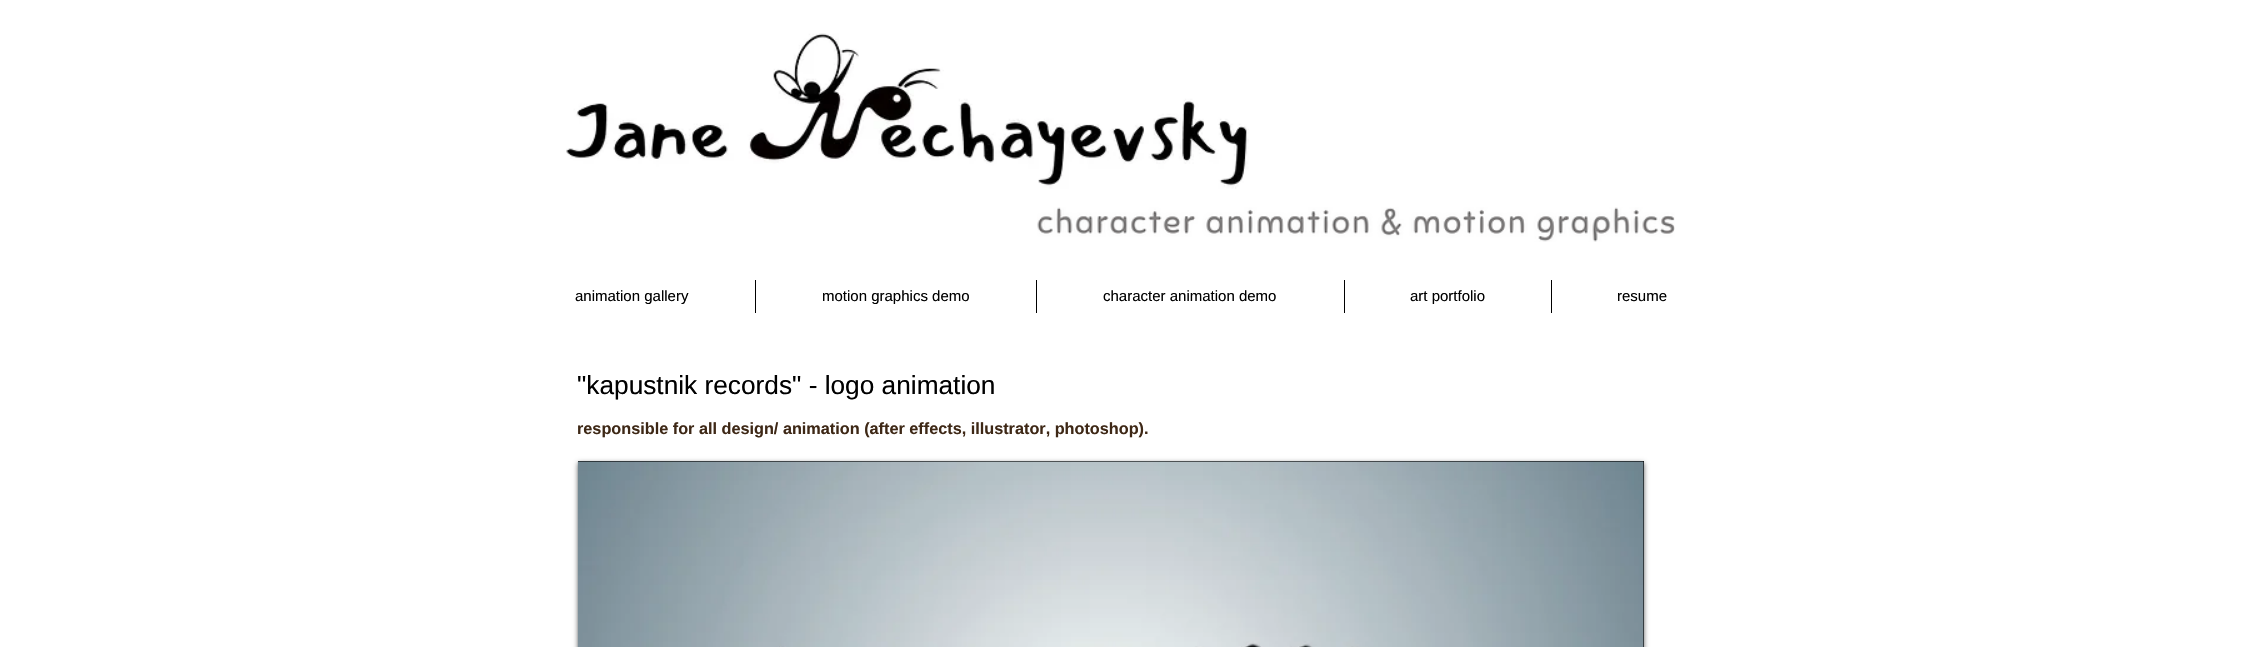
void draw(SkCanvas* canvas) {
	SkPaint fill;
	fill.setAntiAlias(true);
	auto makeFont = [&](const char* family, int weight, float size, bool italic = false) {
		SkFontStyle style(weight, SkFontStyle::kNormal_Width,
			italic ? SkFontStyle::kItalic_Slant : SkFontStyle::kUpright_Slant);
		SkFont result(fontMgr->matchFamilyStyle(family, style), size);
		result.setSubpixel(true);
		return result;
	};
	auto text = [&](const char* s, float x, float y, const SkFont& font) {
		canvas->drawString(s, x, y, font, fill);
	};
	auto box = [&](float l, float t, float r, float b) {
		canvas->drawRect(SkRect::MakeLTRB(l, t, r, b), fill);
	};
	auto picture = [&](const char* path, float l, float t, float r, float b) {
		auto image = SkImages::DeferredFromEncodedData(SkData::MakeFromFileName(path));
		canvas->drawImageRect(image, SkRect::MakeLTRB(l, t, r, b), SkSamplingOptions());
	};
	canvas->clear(0xFFFFFFFF);
	picture("image0.png", 566, 33, 1249, 189);
	picture("image1.png", 1037, 207, 1675, 242);
	fill.setColor(0xFF000000);
	box(755, 280, 756, 313);
	box(1036, 280, 1037, 313);
	box(1344, 280, 1345, 313);
	box(1551, 280, 1552, 313);
	fill.setColor(0x99000000);
	fill.setMaskFilter(SkMaskFilter::MakeBlur(kNormal_SkBlurStyle, 2.5f));
	canvas->drawRect(SkRect::MakeLTRB(578, 463, 1644, 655), fill);
	fill.setMaskFilter(nullptr);
	fill.setColor(0xFF000000);
	box(578, 461, 1644, 647);
	picture("image2.png", 577, 461, 1644, 647);
	auto font1 = makeFont("Liberation Sans", 400, 15);
	text("animation gallery", 575, 301, font1);
	text("motion graphics demo", 822, 301, font1);
	text("character animation demo", 1103, 301, font1);
	text("art portfolio", 1410, 301, font1);
	text("resume", 1617, 301, font1);
	auto font2 = makeFont("Liberation Sans", 400, 26.25f);
	text("\"kapustnik records\" - logo animation", 577, 394, font2);
	auto font3 = makeFont("Liberation Sans", 700, 16.25f);
	fill.setColor(0xFF3E2816);
	text("responsible for all design/ animation (after effects, illustrator, photoshop).", 577, 434, font3);
}
